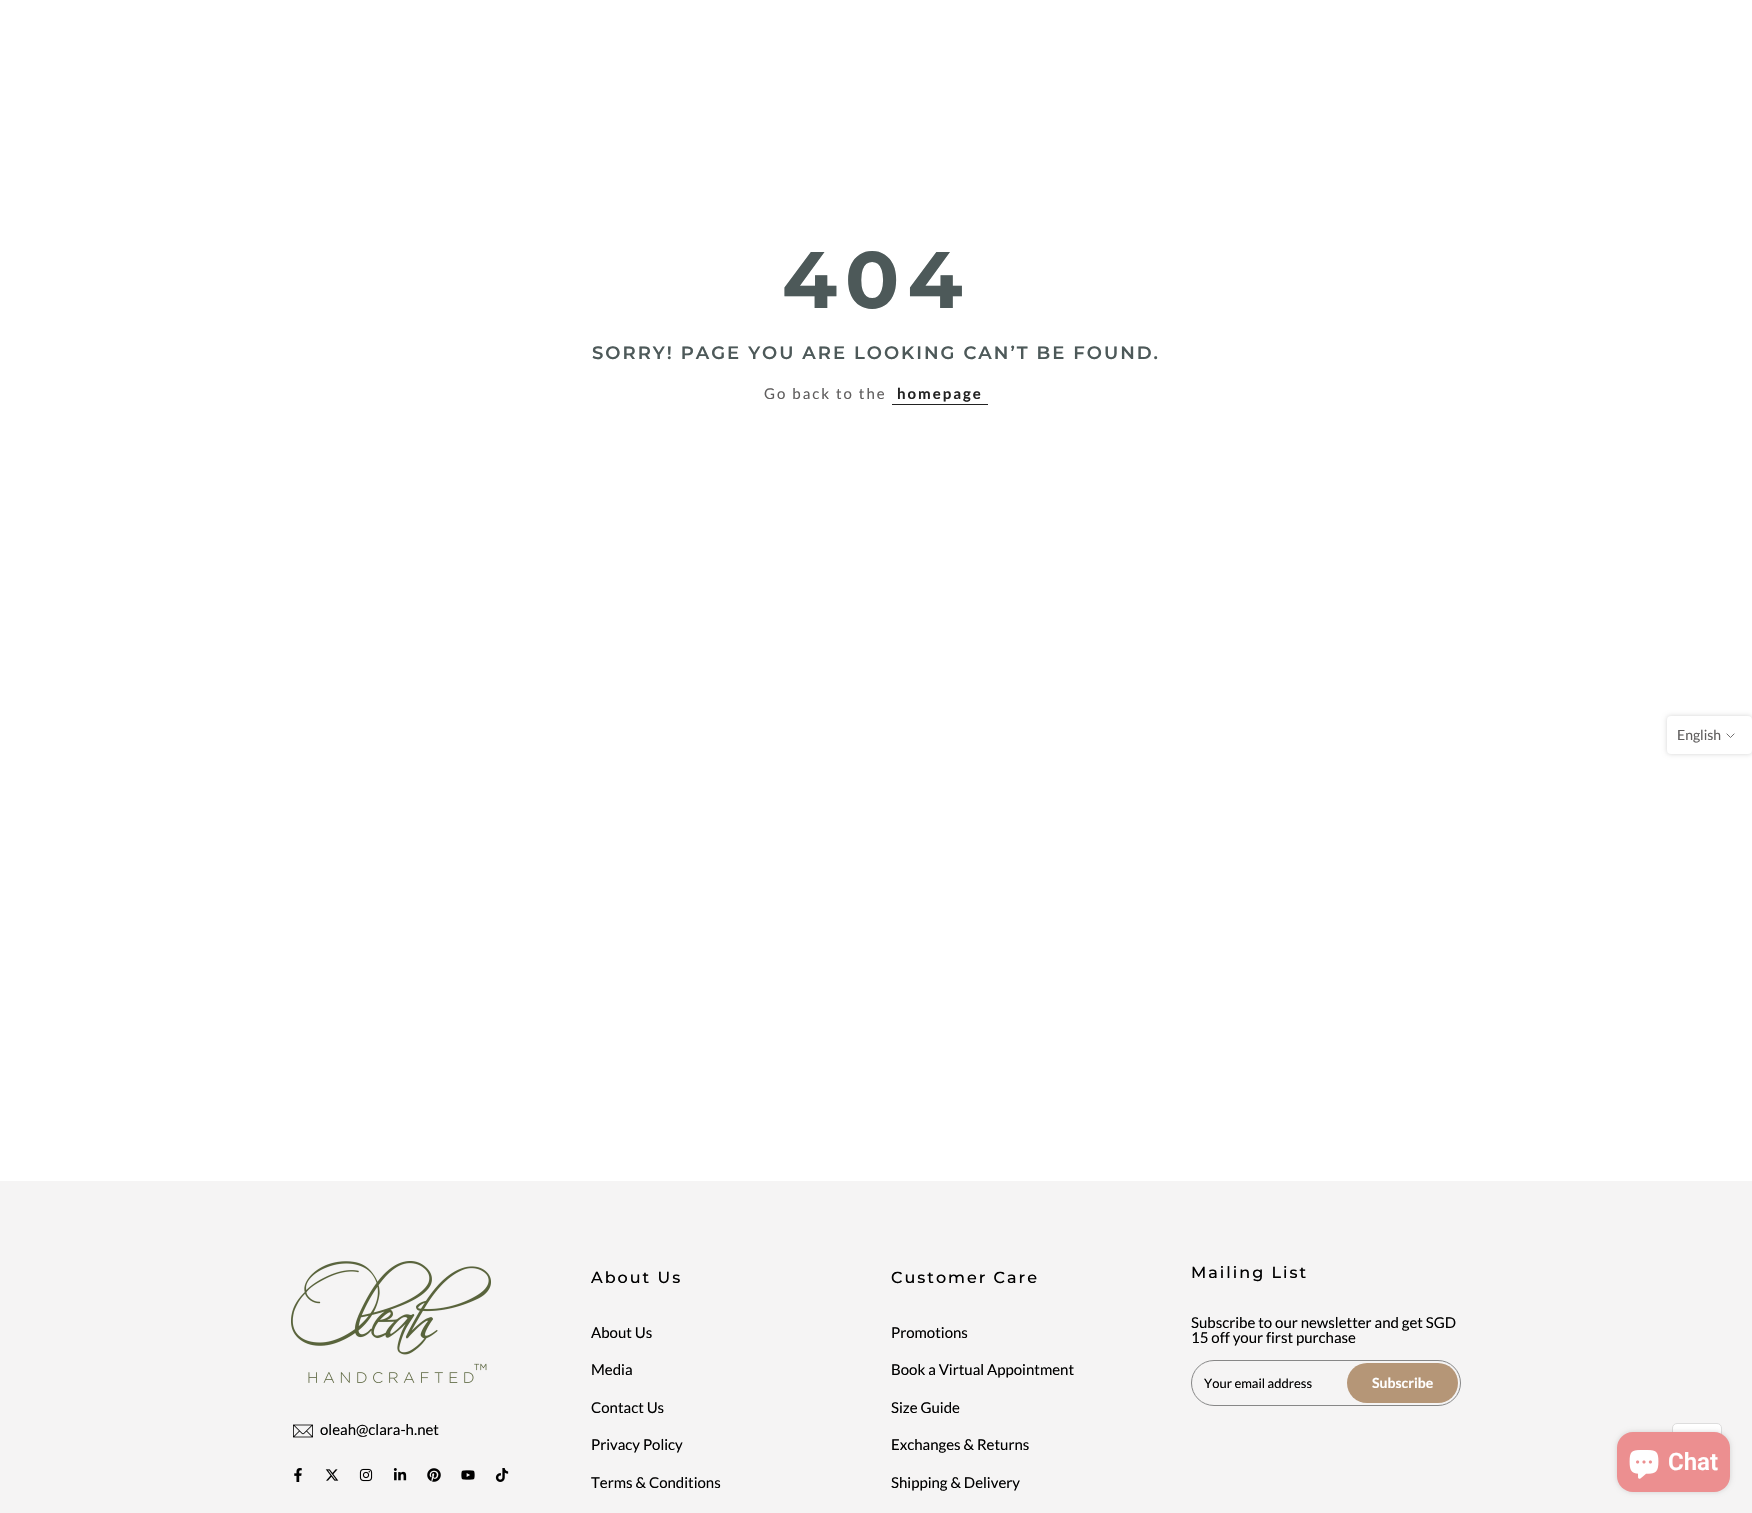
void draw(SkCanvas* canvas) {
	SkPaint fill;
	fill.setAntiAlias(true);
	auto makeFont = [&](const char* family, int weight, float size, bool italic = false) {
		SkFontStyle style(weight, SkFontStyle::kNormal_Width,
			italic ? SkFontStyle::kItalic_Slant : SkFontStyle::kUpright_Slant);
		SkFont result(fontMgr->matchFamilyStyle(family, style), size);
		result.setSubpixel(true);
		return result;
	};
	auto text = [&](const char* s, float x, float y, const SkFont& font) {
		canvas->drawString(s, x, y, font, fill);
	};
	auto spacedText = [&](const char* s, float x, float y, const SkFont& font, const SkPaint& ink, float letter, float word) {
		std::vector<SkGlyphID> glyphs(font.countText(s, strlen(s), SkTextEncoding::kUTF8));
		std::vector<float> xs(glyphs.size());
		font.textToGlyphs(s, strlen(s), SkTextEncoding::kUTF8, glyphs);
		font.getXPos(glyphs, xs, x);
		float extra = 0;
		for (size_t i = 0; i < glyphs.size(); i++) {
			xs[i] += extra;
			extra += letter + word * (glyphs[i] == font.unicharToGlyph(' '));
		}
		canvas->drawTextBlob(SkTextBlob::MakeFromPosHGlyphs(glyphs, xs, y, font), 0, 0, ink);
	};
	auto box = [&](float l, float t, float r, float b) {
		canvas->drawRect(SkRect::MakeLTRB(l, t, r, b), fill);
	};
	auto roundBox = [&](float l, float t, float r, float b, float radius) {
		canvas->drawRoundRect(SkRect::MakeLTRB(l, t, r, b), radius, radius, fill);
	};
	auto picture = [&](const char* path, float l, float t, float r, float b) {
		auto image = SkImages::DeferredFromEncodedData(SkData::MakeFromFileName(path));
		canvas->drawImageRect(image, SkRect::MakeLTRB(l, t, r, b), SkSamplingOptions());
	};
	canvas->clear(0xFFFFFFFF);
	fill.setColor(0xFF222222);
	box(892, 404, 988, 405);
	fill.setColor(0xFFF5F4F4);
	box(0, 1181, 1752, 1513);
	picture("image0.png", 291, 1261, 491, 1383);
	picture("image1.png", 293, 1424, 313, 1438);
	picture("image2.png", 294, 1468, 302, 1482);
	picture("image3.png", 325, 1469, 339, 1481);
	picture("image4.png", 359, 1468, 373, 1482);
	picture("image5.png", 393, 1468, 407, 1481);
	picture("image6.png", 427, 1468, 441, 1482);
	picture("image7.png", 461, 1470, 475, 1480);
	picture("image8.png", 495, 1468, 509, 1482);
	fill.setStyle(SkPaint::kStroke_Style);
	fill.setStrokeWidth(1);
	fill.setColor(0xFF878787);
	canvas->drawRoundRect(SkRect::MakeLTRB(1191.5f, 1360.5f, 1460.5f, 1405.5f), 22.5f, 22.5f, fill);
	fill.setStyle(SkPaint::kFill_Style);
	fill.setColor(0xFFB59677);
	roundBox(1347, 1363, 1458, 1403, 20);
	fill.setColor(0x2B000000);
	fill.setMaskFilter(SkMaskFilter::MakeBlur(kNormal_SkBlurStyle, 2.5f));
	canvas->drawRoundRect(SkRect::MakeLTRB(1667, 716, 1752, 754), 4, 4, fill);
	fill.setMaskFilter(nullptr);
	fill.setColor(0xFFFFFFFF);
	roundBox(1667, 716, 1752, 754, 4);
	fill.setStyle(SkPaint::kStroke_Style);
	fill.setStrokeWidth(0.9f);
	fill.setStrokeCap(SkPaint::kSquare_Cap);
	fill.setColor(0xFF605E5E);
	canvas->drawPath(SkPathBuilder().moveTo(1734, 734).lineTo(1730.5f, 737.5f).lineTo(1727, 734).detach(), fill);
	fill.setStyle(SkPaint::kFill_Style);
	fill.setColor(0xFFFFFFFF);
	canvas->drawRoundRect(SkRect::MakeLTRB(1672.5f, 1423.5f, 1721.5f, 1472.5f), 4.5f, 4.5f, fill);
	fill.setStyle(SkPaint::kStroke_Style);
	fill.setStrokeWidth(1);
	fill.setStrokeCap(SkPaint::kButt_Cap);
	fill.setColor(0xFFDDDDDD);
	canvas->drawRoundRect(SkRect::MakeLTRB(1672.5f, 1423.5f, 1721.5f, 1472.5f), 4.5f, 4.5f, fill);
	fill.setStyle(SkPaint::kFill_Style);
	fill.setColor(0x26000000);
	fill.setMaskFilter(SkMaskFilter::MakeBlur(kNormal_SkBlurStyle, 2.5f));
	canvas->drawRoundRect(SkRect::MakeLTRB(1617, 1432, 1730, 1492), 16, 16, fill);
	fill.setMaskFilter(nullptr);
	fill.setColor(0xFFEC8F90);
	roundBox(1617, 1432, 1730, 1492, 16);
	picture("image9.png", 1629, 1450, 1659, 1479);
	auto font1 = makeFont("Montserrat", 700, 80);
	fill.setColor(0xFF4D5959);
	spacedText("404", 782, 308, font1, fill, 8, 0);
	auto font2 = makeFont("Montserrat", 600, 18);
	spacedText("SORRY! PAGE YOU ARE LOOKING CAN’T BE FOUND.", 592, 359, font2, fill, 2, 0);
	auto font3 = makeFont("Lato", 400, 15);
	fill.setColor(0xFF605E5E);
	spacedText("Go back to the", 764, 399, font3, fill, 2, 0);
	auto font4 = makeFont("Lato", 700, 15);
	fill.setColor(0xFF222222);
	spacedText("homepage", 897, 399, font4, fill, 2, 0);
	fill.setColor(0xFF000000);
	text("oleah@clara-h.net", 320, 1435, font3);
	auto font5 = makeFont("Montserrat", 500, 16);
	spacedText("About Us", 591, 1283, font5, fill, 2, 0);
	text("About Us", 591, 1338, font3);
	text("Media", 591, 1375, font3);
	text("Contact Us", 591, 1413, font3);
	text("Privacy Policy", 591, 1450, font3);
	text("Terms & Conditions", 591, 1488, font3);
	spacedText("Customer Care", 891, 1283, font5, fill, 2, 0);
	text("Promotions", 891, 1338, font3);
	text("Book a Virtual Appointment", 891, 1375, font3);
	text("Size Guide", 891, 1413, font3);
	text("Exchanges & Returns", 891, 1450, font3);
	text("Shipping & Delivery", 891, 1488, font3);
	spacedText("Mailing List", 1191, 1278, font5, fill, 2, 0);
	text("Subscribe to our newsletter and get SGD", 1191, 1328, font3);
	text("15 off your first purchase", 1191, 1343, font3);
	auto font6 = makeFont("Lato", 400, 13);
	text("Your email address", 1204, 1388, font6);
	auto font7 = makeFont("Lato", 700, 14);
	fill.setColor(0xFFFFFFFF);
	text("Subscribe", 1372, 1388, font7);
	auto font8 = makeFont("Lato", 400, 14);
	fill.setColor(0xFF605E5E);
	text("English", 1677, 740, font8);
	auto font9 = makeFont("Roboto", 600, 24);
	fill.setColor(0xFFFFFFFF);
	text("Chat", 1668, 1470, font9);
}
